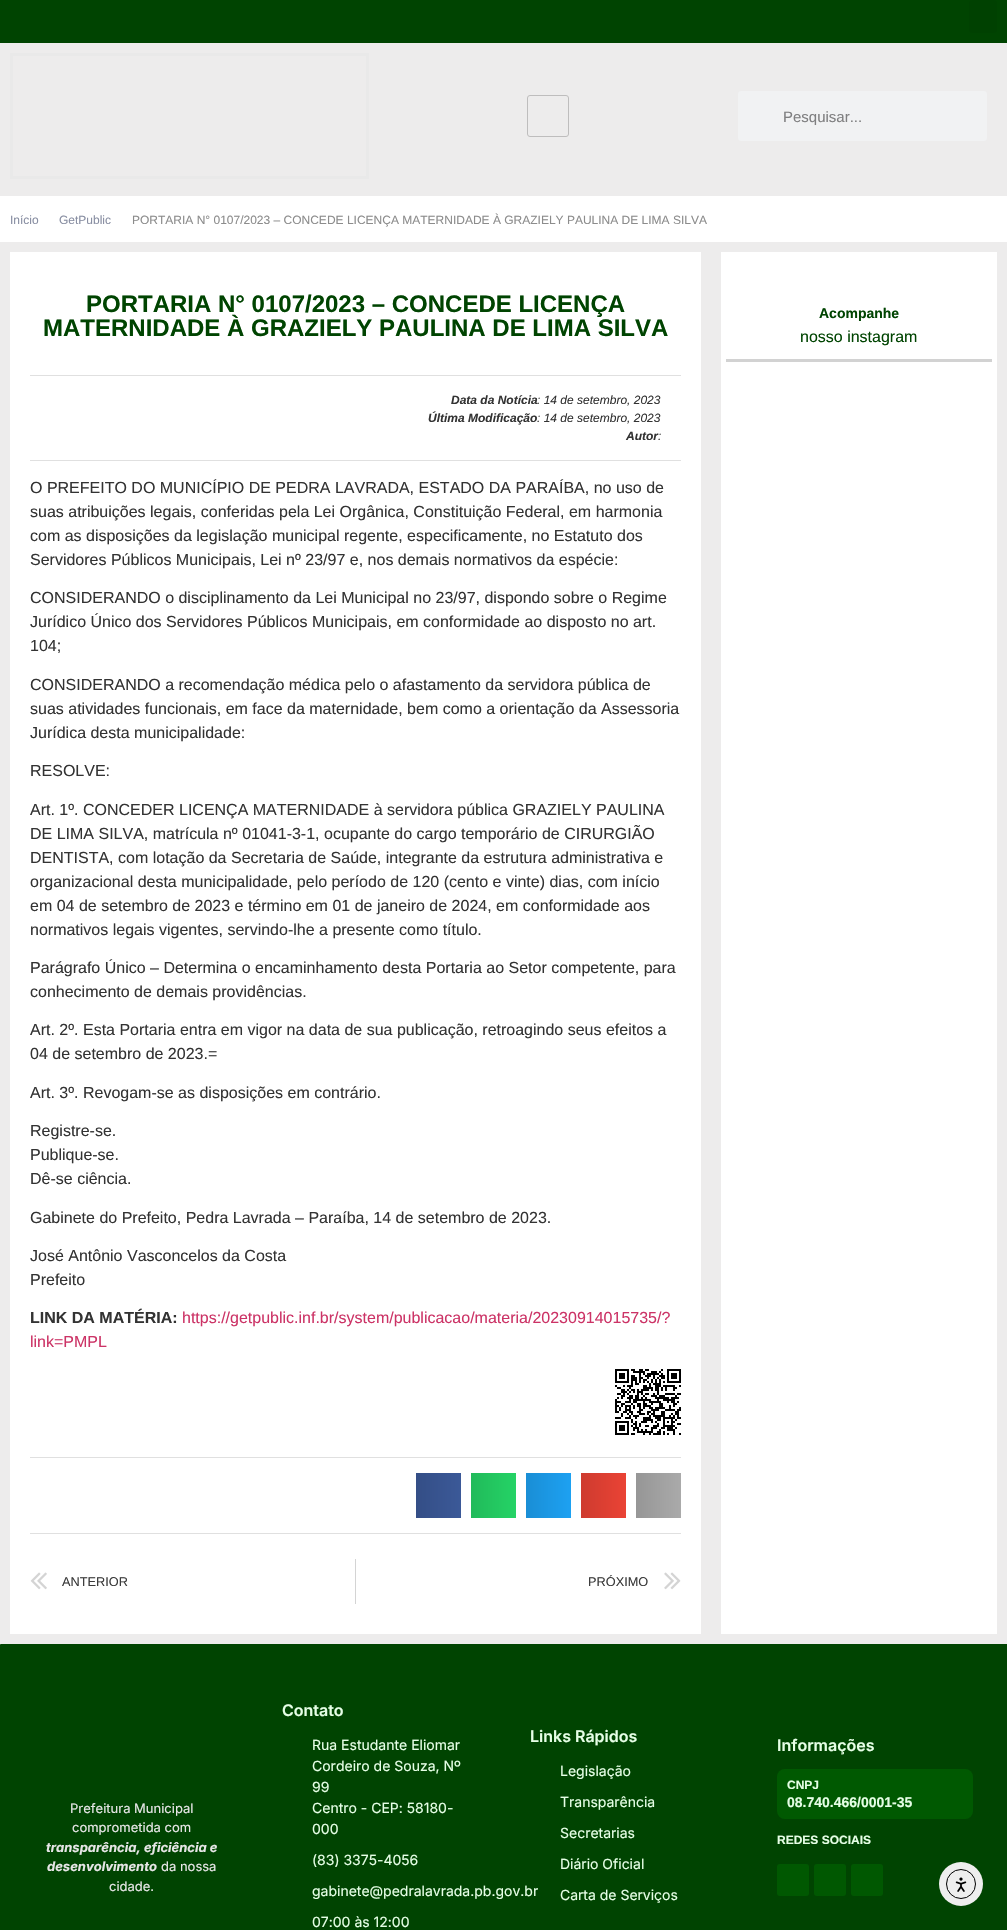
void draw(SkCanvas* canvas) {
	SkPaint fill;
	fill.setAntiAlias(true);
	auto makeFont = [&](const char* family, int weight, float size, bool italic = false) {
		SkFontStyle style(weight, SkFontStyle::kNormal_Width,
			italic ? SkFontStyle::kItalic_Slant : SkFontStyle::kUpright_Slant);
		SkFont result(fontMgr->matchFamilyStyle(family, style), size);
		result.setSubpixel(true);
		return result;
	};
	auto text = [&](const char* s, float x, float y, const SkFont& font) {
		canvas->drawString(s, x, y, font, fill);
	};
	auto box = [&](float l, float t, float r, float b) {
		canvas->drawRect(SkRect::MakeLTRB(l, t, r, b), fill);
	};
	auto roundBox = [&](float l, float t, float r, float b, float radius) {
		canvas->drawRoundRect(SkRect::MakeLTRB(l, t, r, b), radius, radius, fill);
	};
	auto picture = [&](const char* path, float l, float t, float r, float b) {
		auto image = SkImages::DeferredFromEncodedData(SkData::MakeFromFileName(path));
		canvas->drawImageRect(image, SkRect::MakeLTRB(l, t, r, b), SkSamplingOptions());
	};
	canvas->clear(0xFFEDECEC);
	fill.setColor(0xFF004401);
	box(0, 0, 1007, 43);
	fill.setColor(0xFF004101);
	roundBox(969, 0, 997, 33, 3);
	fill.setStyle(SkPaint::kStroke_Style);
	fill.setStrokeWidth(3);
	fill.setColor(0xFFE9E9E9);
	canvas->drawRect(SkRect::MakeLTRB(11.5f, 54.5f, 367.5f, 177.5f), fill);
	fill.setStrokeWidth(1);
	fill.setColor(0xFFBEBDBD);
	canvas->drawRoundRect(SkRect::MakeLTRB(527.5f, 95.5f, 568.5f, 136.5f), 2.5f, 2.5f, fill);
	fill.setStyle(SkPaint::kFill_Style);
	fill.setColor(0xFFF1F2F3);
	roundBox(738, 91, 987, 141, 3);
	fill.setColor(0xFFFFFFFF);
	box(0, 196, 1007, 242);
	box(10, 252, 701, 1634);
	fill.setColor(0xFFE0E0E0);
	box(30, 375, 681, 376);
	box(30, 460, 681, 461);
	picture("image0.png", 615, 1369, 681, 1435);
	box(30, 1457, 681, 1458);
	{
		const SkColor colors[] = {0xFF344E86, 0xFF3B5998};
		const float stops[] = {0, 1};
		const SkPoint ends[] = {{416, 1496}, {461, 1496}};
		fill.setShader(SkGradientShader::MakeLinear(ends, colors, stops, 2, SkTileMode::kClamp));
		fill.setAlpha(255);
	}
	box(416, 1473, 461, 1518);
	{
		const SkColor colors[] = {0xFF21BA5A, 0xFF25D366};
		const float stops[] = {0, 1};
		const SkPoint ends[] = {{471, 1496}, {516, 1496}};
		fill.setShader(SkGradientShader::MakeLinear(ends, colors, stops, 2, SkTileMode::kClamp));
		fill.setAlpha(255);
	}
	box(471, 1473, 516, 1518);
	{
		const SkColor colors[] = {0xFF1A8ED5, 0xFF1DA1F2};
		const float stops[] = {0, 1};
		const SkPoint ends[] = {{526, 1496}, {571, 1496}};
		fill.setShader(SkGradientShader::MakeLinear(ends, colors, stops, 2, SkTileMode::kClamp));
		fill.setAlpha(255);
	}
	box(526, 1473, 571, 1518);
	{
		const SkColor colors[] = {0xFFCE3B2F, 0xFFEA4335};
		const float stops[] = {0, 1};
		const SkPoint ends[] = {{581, 1496}, {626, 1496}};
		fill.setShader(SkGradientShader::MakeLinear(ends, colors, stops, 2, SkTileMode::kClamp));
		fill.setAlpha(255);
	}
	box(581, 1473, 626, 1518);
	{
		const SkColor colors[] = {0xFF969696, 0xFFAAAAAA};
		const float stops[] = {0, 1};
		const SkPoint ends[] = {{636, 1496}, {681, 1496}};
		fill.setShader(SkGradientShader::MakeLinear(ends, colors, stops, 2, SkTileMode::kClamp));
		fill.setAlpha(255);
	}
	box(636, 1473, 681, 1518);
	fill.setShader(nullptr);
	fill.setColor(0xFFE0E0E0);
	box(30, 1533, 681, 1534);
	picture("image1.png", 30, 1572, 47, 1590);
	fill.setColor(0xFFD4D4D4);
	box(355, 1559, 356, 1604);
	picture("image2.png", 664, 1572, 681, 1590);
	fill.setColor(0xFFFFFFFF);
	box(721, 252, 997, 1634);
	fill.setColor(0xFFD2D2D2);
	box(726, 359, 992, 362);
	fill.setColor(0xFF004401);
	canvas->drawPath(SkPathBuilder().moveTo(1, 1644).lineTo(1007, 1644).lineTo(1007, 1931).lineTo(0, 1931).lineTo(0, 1645).cubicTo(0, 1644.5f, 0.5f, 1644, 1, 1644).close().detach(), fill);
	fill.setColor(0xFF005901);
	roundBox(777, 1769, 973, 1819, 8);
	fill.setColor(0xFF005801);
	roundBox(777, 1864, 809, 1896, 3);
	roundBox(814, 1864, 846, 1896, 3);
	roundBox(851, 1864, 883, 1896, 3);
	fill.setColor(0xFFEEEEEE);
	canvas->drawCircle(961, 1884, 22, fill);
	fill.setStyle(SkPaint::kStroke_Style);
	fill.setColor(0xFF000000);
	canvas->drawCircle(961, 1884, 14.5f, fill);
	picture("image3.png", 955, 1877, 967, 1892);
	auto font1 = makeFont("Liberation Sans", 400, 15);
	fill.setStyle(SkPaint::kFill_Style);
	fill.setColor(0xFF7F7F80);
	text("Pesquisar...", 783, 122, font1);
	auto font2 = makeFont("Liberation Sans", 400, 12);
	fill.setColor(0xFF888EA2);
	text("Início", 10, 224, font2);
	text("GetPublic", 59, 224, font2);
	fill.setColor(0xFF8C8C8C);
	text("PORTARIA N° 0107/2023 – CONCEDE LICENÇA MATERNIDADE À GRAZIELY PAULINA DE LIMA SILVA", 132, 224, font2);
	auto font3 = makeFont("Liberation Sans", 700, 24);
	fill.setColor(0xFF004401);
	text("PORTARIA N° 0107/2023 – CONCEDE LICENÇA", 86, 312, font3);
	text("MATERNIDADE À GRAZIELY PAULINA DE LIMA SILVA", 43, 336, font3);
	auto font4 = makeFont("Liberation Sans", 700, 12, true);
	fill.setColor(0xFF333333);
	text("Data da Notícia", 451, 404, font4);
	auto font5 = makeFont("Liberation Sans", 400, 12, true);
	text(": 14 de setembro, 2023", 537, 404, font5);
	text("Última Modificação", 428, 422, font4);
	text(": 14 de setembro, 2023", 537, 422, font5);
	text("Autor", 626, 440, font4);
	text(":", 658, 440, font5);
	auto font6 = makeFont("Liberation Sans", 400, 16);
	text("O PREFEITO DO MUNICÍPIO DE PEDRA LAVRADA, ESTADO DA PARAÍBA, no uso de", 30, 493, font6);
	text("suas atribuições legais, conferidas pela Lei Orgânica, Constituição Federal, em harmonia", 30, 517, font6);
	text("com as disposições da legislação municipal regente, especificamente, no Estatuto dos", 30, 541, font6);
	text("Servidores Públicos Municipais, Lei nº 23/97 e, nos demais normativos da espécie:", 30, 565, font6);
	text("CONSIDERANDO o disciplinamento da Lei Municipal no 23/97, dispondo sobre o Regime", 30, 603, font6);
	text("Jurídico Único dos Servidores Públicos Municipais, em conformidade ao disposto no art.", 30, 627, font6);
	text("104;", 30, 651, font6);
	text("CONSIDERANDO a recomendação médica pelo o afastamento da servidora pública de", 30, 690, font6);
	text("suas atividades funcionais, em face da maternidade, bem como a orientação da Assessoria", 30, 714, font6);
	text("Jurídica desta municipalidade:", 30, 738, font6);
	text("RESOLVE:", 30, 776, font6);
	text("Art. 1º. CONCEDER LICENÇA MATERNIDADE à servidora pública GRAZIELY PAULINA", 30, 815, font6);
	text("DE LIMA SILVA, matrícula nº 01041-3-1, ocupante do cargo temporário de CIRURGIÃO", 30, 839, font6);
	text("DENTISTA, com lotação da Secretaria de Saúde, integrante da estrutura administrativa e", 30, 863, font6);
	text("organizacional desta municipalidade, pelo período de 120 (cento e vinte) dias, com início", 30, 887, font6);
	text("em 04 de setembro de 2023 e término em 01 de janeiro de 2024, em conformidade aos", 30, 911, font6);
	text("normativos legais vigentes, servindo-lhe a presente como título.", 30, 935, font6);
	text("Parágrafo Único – Determina o encaminhamento desta Portaria ao Setor competente, para", 30, 973, font6);
	text("conhecimento de demais providências.", 30, 997, font6);
	text("Art. 2º. Esta Portaria entra em vigor na data de sua publicação, retroagindo seus efeitos a", 30, 1035, font6);
	text("04 de setembro de 2023.=", 30, 1059, font6);
	text("Art. 3º. Revogam-se as disposições em contrário.", 30, 1098, font6);
	text("Registre-se.", 30, 1136, font6);
	text("Publique-se.", 30, 1160, font6);
	text("Dê-se ciência.", 30, 1184, font6);
	text("Gabinete do Prefeito, Pedra Lavrada – Paraíba, 14 de setembro de 2023.", 30, 1223, font6);
	text("José Antônio Vasconcelos da Costa", 30, 1261, font6);
	text("Prefeito", 30, 1285, font6);
	auto font7 = makeFont("Liberation Sans", 700, 16);
	text("LINK DA MATÉRIA:", 30, 1323, font7);
	fill.setColor(0xFFCC3366);
	text("https://getpublic.inf.br/system/publicacao/materia/20230914015735/?", 182, 1323, font6);
	text("link=PMPL", 30, 1347, font6);
	auto font8 = makeFont("Liberation Sans", 400, 12.75f);
	fill.setColor(0xFF3A3A3A);
	text("ANTERIOR", 62, 1586, font8);
	text("PRÓXIMO", 588, 1586, font8);
	auto font9 = makeFont("Liberation Sans", 700, 14);
	fill.setColor(0xFF004401);
	text("Acompanhe", 819, 318, font9);
	text("nosso instagram", 800, 342, font6);
	auto font10 = makeFont("Inter", 400, 13);
	fill.setColor(0xFFE6E6E6);
	text("Prefeitura Municipal", 70, 1813, font10);
	text("comprometida com", 72, 1832, font10);
	auto font11 = makeFont("Inter", 700, 13, true);
	text("transparência, eficiência e", 46, 1852, font11);
	text("desenvolvimento", 47, 1871, font11);
	text("da nossa", 161, 1871, font10);
	text("cidade.", 109, 1891, font10);
	auto font12 = makeFont("Inter", 600, 16);
	fill.setColor(0xFFE6FFE6);
	text("Contato", 282, 1716, font12);
	auto font13 = makeFont("Inter", 400, 14);
	text("Rua Estudante Eliomar", 312, 1750, font13);
	text("Cordeiro de Souza, Nº", 312, 1771, font13);
	text("99", 312, 1792, font13);
	text("Centro - CEP: 58180-", 312, 1813, font13);
	text("000", 312, 1834, font13);
	text("(83) 3375-4056", 312, 1865, font13);
	text("gabinete@pedralavrada.pb.gov.br", 312, 1896, font13);
	text("07:00 às 12:00", 312, 1927, font13);
	text("Links Rápidos", 530, 1742, font12);
	text("Legislação", 560, 1776, font13);
	text("Transparência", 560, 1807, font13);
	text("Secretarias", 560, 1838, font13);
	text("Diário Oficial", 560, 1869, font13);
	text("Carta de Serviços", 560, 1900, font13);
	text("Informações", 777, 1751, font12);
	auto font14 = makeFont("Liberation Sans", 700, 12);
	text("CNPJ", 787, 1789, font14);
	text("08.740.466/0001-35", 787, 1807, font9);
	text("REDES SOCIAIS", 777, 1844, font14);
}
